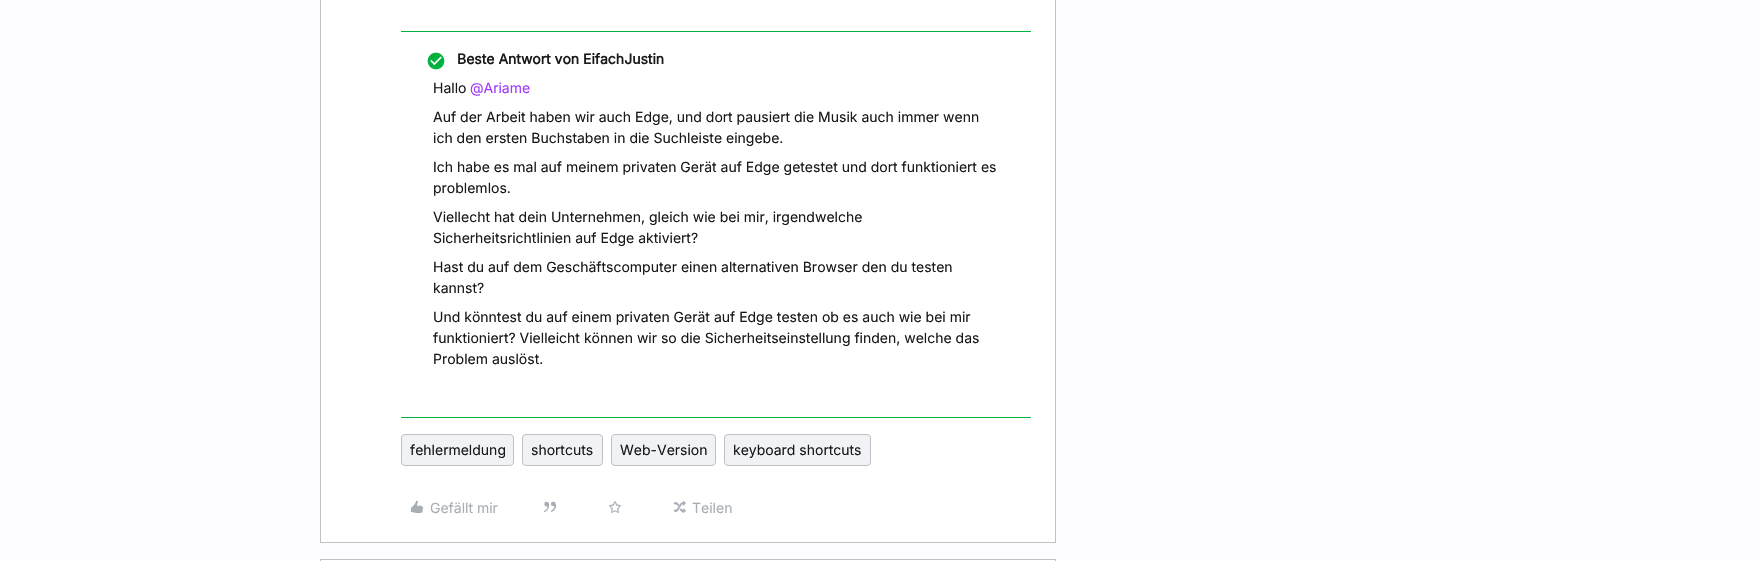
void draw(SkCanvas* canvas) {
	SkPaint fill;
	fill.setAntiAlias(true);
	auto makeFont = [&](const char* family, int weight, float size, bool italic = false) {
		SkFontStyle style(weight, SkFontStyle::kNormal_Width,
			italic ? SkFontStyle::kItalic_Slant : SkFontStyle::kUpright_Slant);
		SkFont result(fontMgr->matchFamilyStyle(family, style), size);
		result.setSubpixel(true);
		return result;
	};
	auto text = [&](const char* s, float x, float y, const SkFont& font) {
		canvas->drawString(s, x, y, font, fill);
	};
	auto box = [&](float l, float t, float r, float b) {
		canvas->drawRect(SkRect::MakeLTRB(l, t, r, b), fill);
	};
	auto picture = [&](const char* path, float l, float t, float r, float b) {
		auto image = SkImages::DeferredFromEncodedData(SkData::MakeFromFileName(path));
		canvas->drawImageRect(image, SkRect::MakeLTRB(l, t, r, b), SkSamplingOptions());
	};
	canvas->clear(0xFFFDFCFE);
	fill.setColor(0xFFFFFFFF);
	canvas->drawRect(SkRect::MakeLTRB(320.5f, -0.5f, 1055.5f, 542.5f), fill);
	fill.setStyle(SkPaint::kStroke_Style);
	fill.setStrokeWidth(1);
	fill.setColor(0xFFC2C0C4);
	canvas->drawRect(SkRect::MakeLTRB(320.5f, -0.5f, 1055.5f, 542.5f), fill);
	fill.setStyle(SkPaint::kFill_Style);
	fill.setColor(0xFF00B23D);
	box(401, 31, 1031, 32);
	box(401, 417, 1031, 418);
	picture("image0.png", 427, 52, 445, 70);
	fill.setColor(0xFFF0F2F6);
	canvas->drawRoundRect(SkRect::MakeLTRB(401.5f, 434.5f, 513.5f, 465.5f), 3.5f, 3.5f, fill);
	fill.setStyle(SkPaint::kStroke_Style);
	fill.setColor(0xFFC2C0C4);
	canvas->drawRoundRect(SkRect::MakeLTRB(401.5f, 434.5f, 513.5f, 465.5f), 3.5f, 3.5f, fill);
	fill.setStyle(SkPaint::kFill_Style);
	fill.setColor(0xFFF0F2F6);
	canvas->drawRoundRect(SkRect::MakeLTRB(522.5f, 434.5f, 602.5f, 465.5f), 3.5f, 3.5f, fill);
	fill.setStyle(SkPaint::kStroke_Style);
	fill.setColor(0xFFC2C0C4);
	canvas->drawRoundRect(SkRect::MakeLTRB(522.5f, 434.5f, 602.5f, 465.5f), 3.5f, 3.5f, fill);
	fill.setStyle(SkPaint::kFill_Style);
	fill.setColor(0xFFF0F2F6);
	canvas->drawRoundRect(SkRect::MakeLTRB(611.5f, 434.5f, 715.5f, 465.5f), 3.5f, 3.5f, fill);
	fill.setStyle(SkPaint::kStroke_Style);
	fill.setColor(0xFFC2C0C4);
	canvas->drawRoundRect(SkRect::MakeLTRB(611.5f, 434.5f, 715.5f, 465.5f), 3.5f, 3.5f, fill);
	fill.setStyle(SkPaint::kFill_Style);
	fill.setColor(0xFFF0F2F6);
	canvas->drawRoundRect(SkRect::MakeLTRB(724.5f, 434.5f, 870.5f, 465.5f), 3.5f, 3.5f, fill);
	fill.setStyle(SkPaint::kStroke_Style);
	fill.setColor(0xFFC2C0C4);
	canvas->drawRoundRect(SkRect::MakeLTRB(724.5f, 434.5f, 870.5f, 465.5f), 3.5f, 3.5f, fill);
	picture("image1.png", 410, 500, 424, 514);
	picture("image2.png", 544, 501, 557, 513);
	picture("image3.png", 609, 501, 621, 514);
	picture("image4.png", 673, 500, 686, 513);
	fill.setStyle(SkPaint::kFill_Style);
	fill.setColor(0xFFFFFFFF);
	canvas->drawRect(SkRect::MakeLTRB(320.5f, 559.5f, 1055.5f, 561.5f), fill);
	fill.setStyle(SkPaint::kStroke_Style);
	fill.setColor(0xFFC2C0C4);
	canvas->drawRect(SkRect::MakeLTRB(320.5f, 559.5f, 1055.5f, 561.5f), fill);
	auto font1 = makeFont("Inter", 700, 14);
	fill.setStyle(SkPaint::kFill_Style);
	fill.setColor(0xFF191919);
	text("Beste Antwort von EifachJustin", 457, 64, font1);
	auto font2 = makeFont("Inter", 400, 14);
	text("Hallo", 433, 93, font2);
	fill.setColor(0xFFA238FF);
	text("@Ariame", 470, 93, font2);
	fill.setColor(0xFF191919);
	text("Auf der Arbeit haben wir auch Edge, und dort pausiert die Musik auch immer wenn", 433, 122, font2);
	text("ich den ersten Buchstaben in die Suchleiste eingebe.", 433, 143, font2);
	text("Ich habe es mal auf meinem privaten Gerät auf Edge getestet und dort funktioniert es", 433, 172, font2);
	text("problemlos.", 433, 193, font2);
	text("Viellecht hat dein Unternehmen, gleich wie bei mir, irgendwelche", 433, 222, font2);
	text("Sicherheitsrichtlinien auf Edge aktiviert?", 433, 243, font2);
	text("Hast du auf dem Geschäftscomputer einen alternativen Browser den du testen", 433, 272, font2);
	text("kannst?", 433, 293, font2);
	text("Und könntest du auf einem privaten Gerät auf Edge testen ob es auch wie bei mir", 433, 322, font2);
	text("funktioniert? Vielleicht können wir so die Sicherheitseinstellung finden, welche das", 433, 343, font2);
	text("Problem auslöst.", 433, 364, font2);
	text("fehlermeldung", 410, 455, font2);
	text("shortcuts", 531, 455, font2);
	text("Web-Version", 620, 455, font2);
	text("keyboard shortcuts", 733, 455, font2);
	fill.setColor(0xFFA7AEB5);
	text("Gefällt mir", 430, 513, font2);
	text("Teilen", 692, 513, font2);
}
